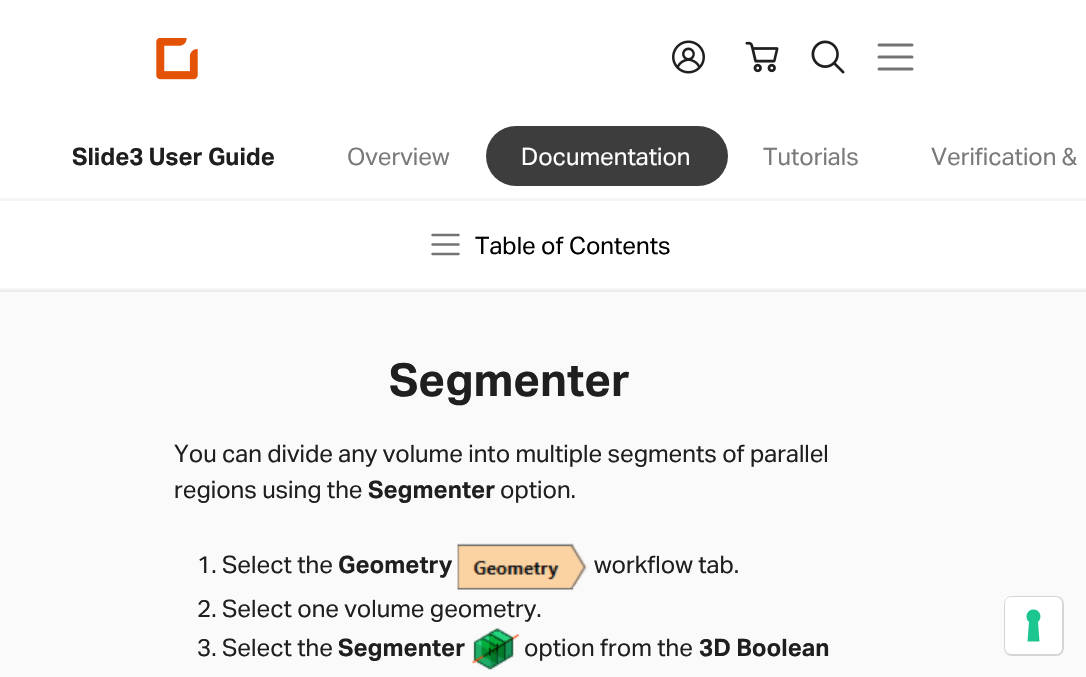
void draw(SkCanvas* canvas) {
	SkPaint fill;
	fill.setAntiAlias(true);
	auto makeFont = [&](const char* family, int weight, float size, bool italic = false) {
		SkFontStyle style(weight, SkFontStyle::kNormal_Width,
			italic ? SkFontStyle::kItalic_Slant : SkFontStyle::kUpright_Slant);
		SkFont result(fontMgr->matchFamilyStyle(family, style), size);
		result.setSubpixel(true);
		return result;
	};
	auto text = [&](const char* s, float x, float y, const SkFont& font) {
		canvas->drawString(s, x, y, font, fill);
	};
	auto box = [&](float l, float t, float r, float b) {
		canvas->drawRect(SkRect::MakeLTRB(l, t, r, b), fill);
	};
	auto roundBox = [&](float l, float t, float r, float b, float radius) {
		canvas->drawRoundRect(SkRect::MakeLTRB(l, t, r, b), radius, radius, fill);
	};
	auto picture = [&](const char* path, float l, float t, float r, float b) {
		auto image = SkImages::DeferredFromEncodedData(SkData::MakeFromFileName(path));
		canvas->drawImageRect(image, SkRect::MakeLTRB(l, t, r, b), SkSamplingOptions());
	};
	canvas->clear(0xFFFAFAFA);
	fill.setColor(0xFFFFFFFF);
	box(0, 0, 1086, 198);
	picture("image0.png", 156, 38, 198, 80);
	picture("image1.png", 672, 40, 705, 74);
	picture("image2.png", 745, 41, 779, 73);
	picture("image3.png", 811, 40, 845, 74);
	fill.setStyle(SkPaint::kStroke_Style);
	fill.setStrokeWidth(3);
	fill.setStrokeCap(SkPaint::kRound_Cap);
	fill.setColor(0xFF737373);
	canvas->drawPath(SkPathBuilder().moveTo(879, 45).lineTo(912, 45).moveTo(879, 57).lineTo(912, 57).moveTo(879, 69).lineTo(912, 69).detach(), fill);
	fill.setStyle(SkPaint::kFill_Style);
	fill.setColor(0xFFF5F5F5);
	box(0, 198, 1086, 201);
	fill.setColor(0xFF3D3D3D);
	roundBox(486, 126, 728, 186, 30);
	fill.setColor(0xFFEBEBEB);
	box(0, 290, 1086, 292);
	fill.setColor(0xFFFFFFFF);
	box(0, 201, 1086, 288);
	fill.setColor(0xFFF5F5F5);
	box(0, 288, 1086, 290);
	fill.setStyle(SkPaint::kStroke_Style);
	fill.setStrokeWidth(2.4f);
	fill.setColor(0xFF737373);
	canvas->drawPath(SkPathBuilder().moveTo(432.5f, 235).lineTo(458.5f, 235).moveTo(432.5f, 244.5f).lineTo(458.5f, 244.5f).moveTo(432.5f, 254).lineTo(458.5f, 254).detach(), fill);
	picture("image4.png", 457, 543, 588, 590);
	picture("image5.png", 472, 628, 519, 670);
	fill.setStrokeWidth(2);
	fill.setStrokeCap(SkPaint::kButt_Cap);
	fill.setColor(0xFFD5D5D5);
	canvas->drawRoundRect(SkRect::MakeLTRB(1005, 597, 1063, 655), 7, 7, fill);
	fill.setStyle(SkPaint::kFill_Style);
	fill.setColor(0xFFFFFFFF);
	roundBox(1005, 597, 1062, 654, 6);
	fill.setColor(0xFF1CC691);
	canvas->drawPath(SkPathBuilder(SkPathFillType::kEvenOdd).moveTo(1033.5f, 609.5f).cubicTo(1040, 609.5f, 1043, 617.5f, 1038, 622).lineTo(1039.5f, 641.5f).lineTo(1027.5f, 641.5f).lineTo(1029, 622).cubicTo(1024, 617.5f, 1027, 609.5f, 1033.5f, 609.5f).close().detach(), fill);
	auto font1 = makeFont("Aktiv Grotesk", 700, 24);
	fill.setColor(0xFF1F1F1F);
	text("Slide3 User Guide", 72, 165, font1);
	auto font2 = makeFont("Aktiv Grotesk", 400, 24);
	fill.setColor(0xFF7A7A7A);
	text("Overview", 347, 165, font2);
	fill.setColor(0xFFFFFFFF);
	text("Documentation", 521, 165, font2);
	fill.setColor(0xFF7A7A7A);
	text("Tutorials", 763, 165, font2);
	text("Verification &", 931, 165, font2);
	fill.setColor(0xFF000000);
	text("Table of Contents", 475, 254, font2);
	auto font3 = makeFont("Aktiv Grotesk", 700, 45.5f);
	fill.setColor(0xFF1F1F1F);
	text("Segmenter", 389, 396, font3);
	text("You can divide any volume into multiple segments of parallel", 174, 462, font2);
	text("regions using the", 174, 498, font2);
	text("Segmenter", 368, 498, font1);
	text("option.", 500, 498, font2);
	text("1. Select the", 197, 573, font2);
	text("Geometry", 338, 573, font1);
	text("workflow tab.", 594, 573, font2);
	text("2. Select one volume geometry.", 197, 617, font2);
	text("3. Select the", 197, 656, font2);
	text("Segmenter", 338, 656, font1);
	text("option from the", 524, 656, font2);
	text("3D Boolean", 699, 656, font1);
}
